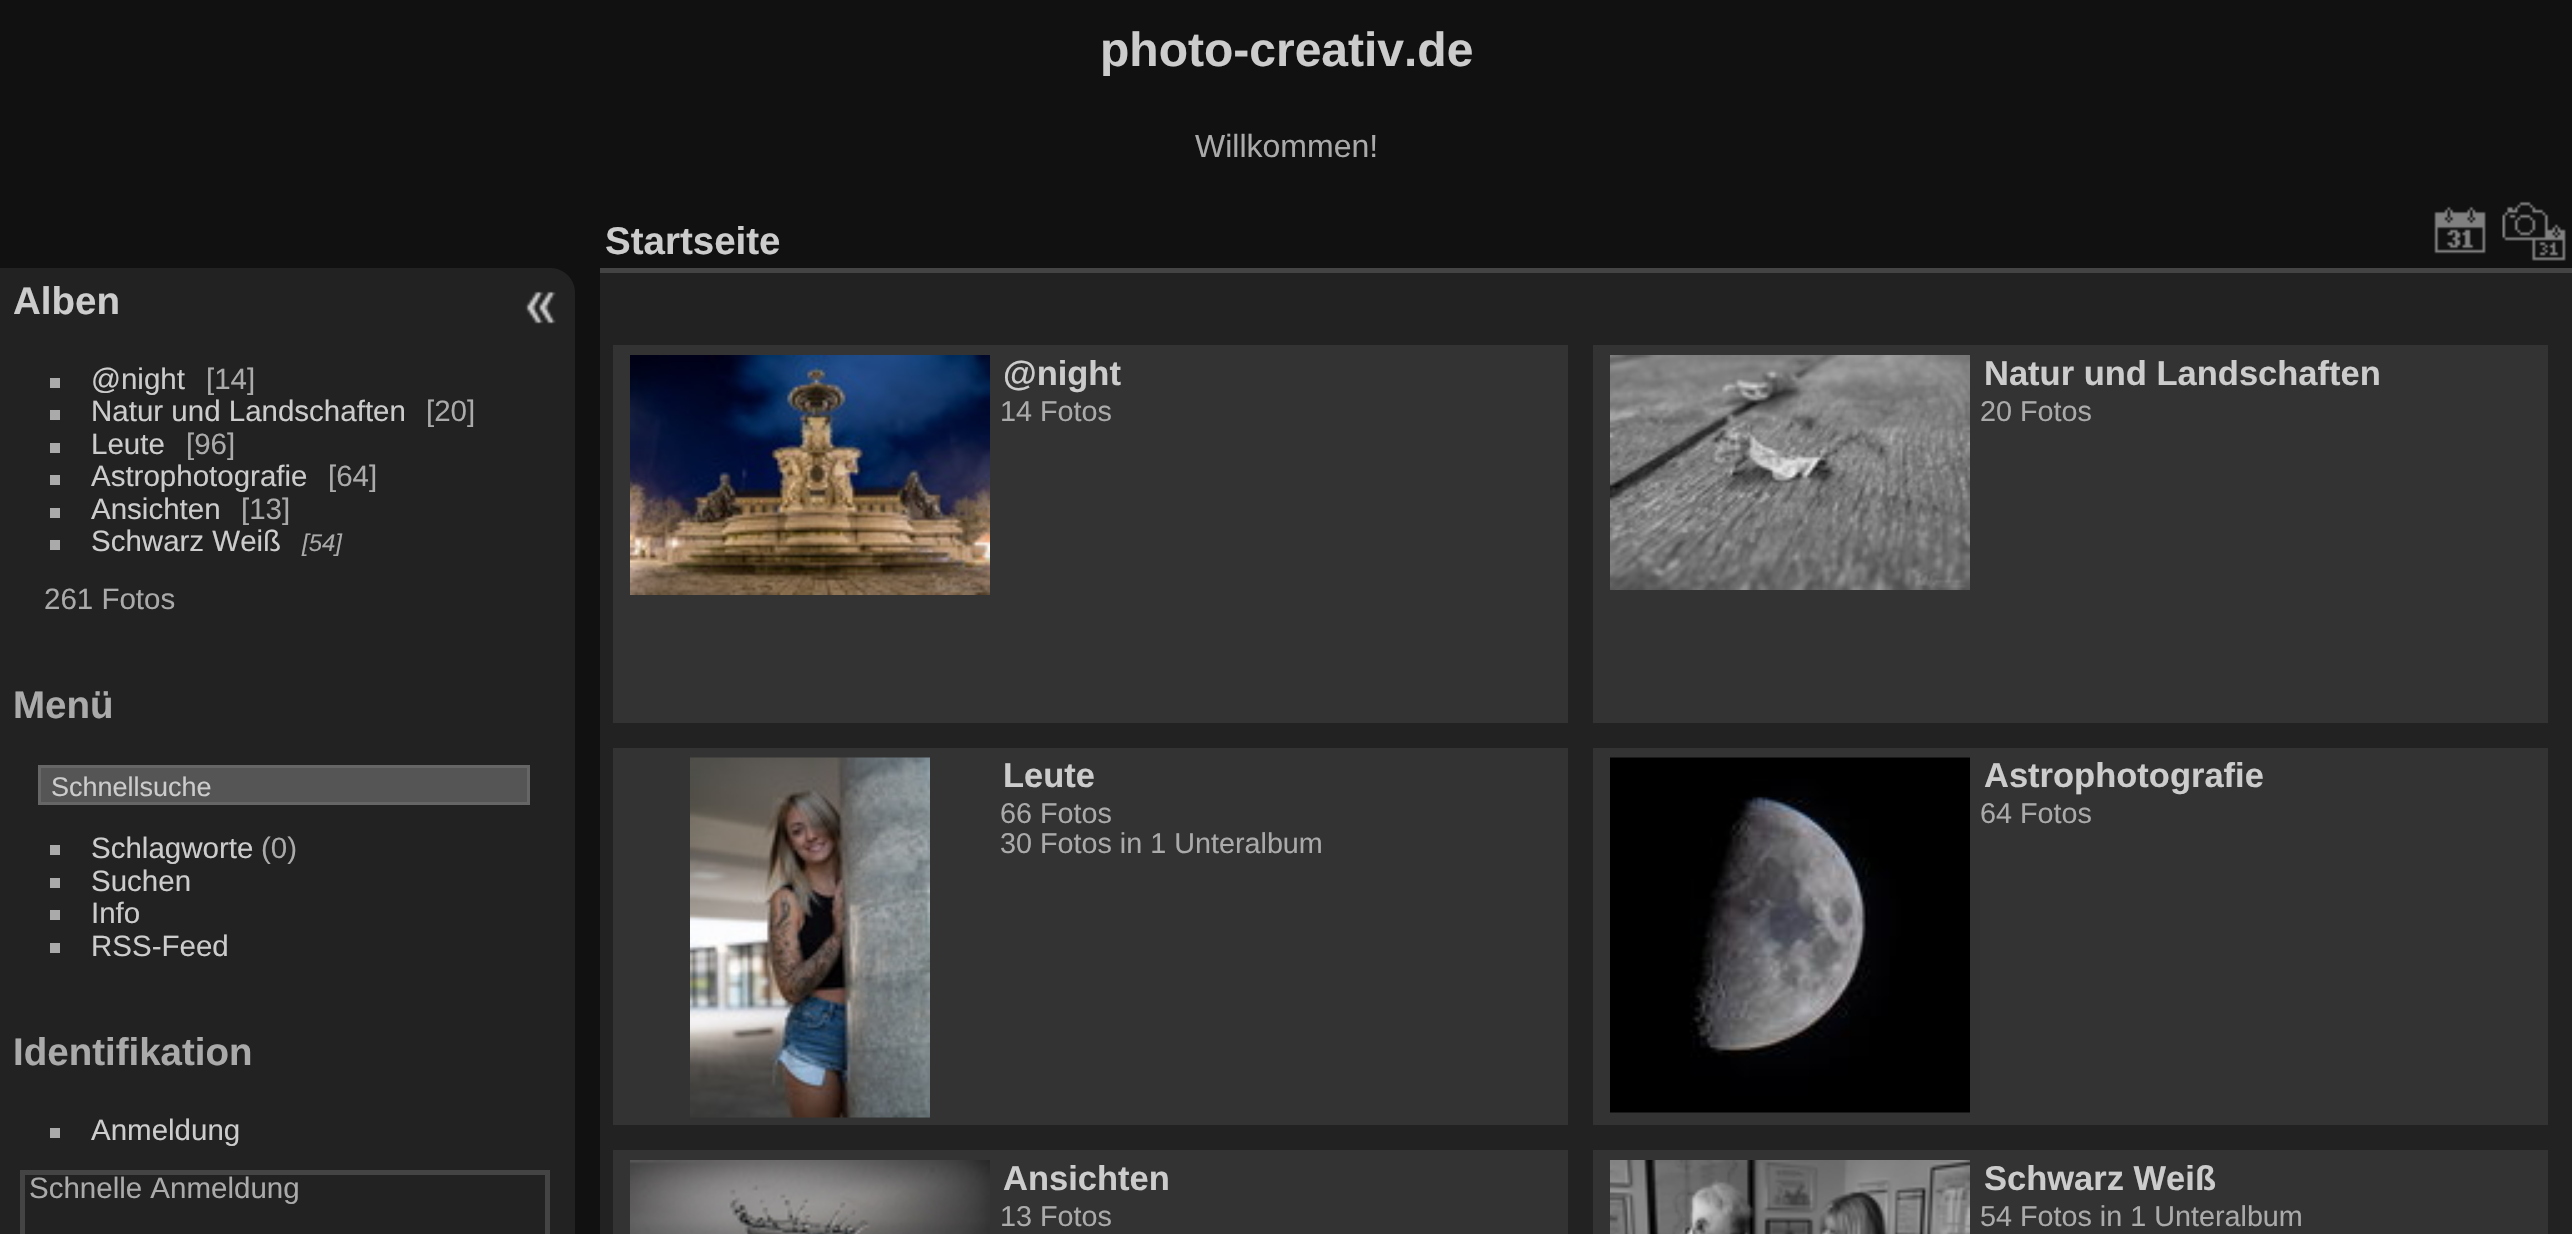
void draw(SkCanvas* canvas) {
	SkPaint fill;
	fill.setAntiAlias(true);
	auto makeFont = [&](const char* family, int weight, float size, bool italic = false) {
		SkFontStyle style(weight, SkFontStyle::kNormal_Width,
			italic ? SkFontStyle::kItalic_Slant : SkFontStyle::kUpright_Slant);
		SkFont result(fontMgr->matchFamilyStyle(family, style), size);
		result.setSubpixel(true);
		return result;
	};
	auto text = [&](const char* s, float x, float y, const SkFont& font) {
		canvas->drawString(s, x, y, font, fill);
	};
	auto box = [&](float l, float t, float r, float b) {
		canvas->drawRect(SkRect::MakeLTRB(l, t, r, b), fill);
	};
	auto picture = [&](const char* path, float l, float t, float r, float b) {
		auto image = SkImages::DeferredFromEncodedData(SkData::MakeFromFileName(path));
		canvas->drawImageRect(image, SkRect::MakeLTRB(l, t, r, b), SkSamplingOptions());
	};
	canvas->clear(0xFF111111);
	fill.setColor(0xFF222222);
	canvas->drawPath(SkPathBuilder().moveTo(0, 268).lineTo(550, 268).cubicTo(564, 268, 575, 279, 575, 293).lineTo(575, 1234).cubicTo(575, 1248, 564, 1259, 550, 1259).lineTo(0, 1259).close().detach(), fill);
	fill.setColor(0xFFAAAAAA);
	box(50, 378, 60, 388);
	box(50, 410, 60, 420);
	box(50, 443, 60, 453);
	box(50, 475, 60, 485);
	box(50, 508, 60, 518);
	box(50, 540, 60, 550);
	fill.setColor(0xFF555555);
	canvas->drawRect(SkRect::MakeLTRB(39.5f, 766.5f, 528.5f, 803.5f), fill);
	fill.setStyle(SkPaint::kStroke_Style);
	fill.setStrokeWidth(3);
	fill.setColor(0xFF666666);
	canvas->drawRect(SkRect::MakeLTRB(39.5f, 766.5f, 528.5f, 803.5f), fill);
	fill.setStyle(SkPaint::kFill_Style);
	fill.setColor(0xFFAAAAAA);
	box(50, 845, 60, 855);
	box(50, 878, 60, 888);
	box(50, 910, 60, 920);
	box(50, 943, 60, 953);
	box(50, 1128, 60, 1138);
	fill.setStyle(SkPaint::kStroke_Style);
	fill.setStrokeWidth(5);
	fill.setColor(0xFF444444);
	canvas->drawRect(SkRect::MakeLTRB(22.5f, 1172.5f, 547.5f, 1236.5f), fill);
	picture("image0.png", 525, 291, 556, 324);
	fill.setStyle(SkPaint::kFill_Style);
	fill.setColor(0xFF222222);
	box(600, 273, 2572, 1234);
	fill.setColor(0xFF444444);
	box(600, 268, 2572, 273);
	picture("image1.png", 2434, 206, 2486, 254);
	picture("image2.png", 2502, 201, 2566, 261);
	fill.setColor(0xFF333333);
	box(613, 345, 1568, 723);
	picture("image3.png", 630, 355, 990, 595);
	box(1593, 345, 2548, 723);
	picture("image4.png", 1610, 355, 1970, 590);
	box(613, 748, 1568, 1125);
	picture("image5.png", 690, 757, 930, 1118);
	box(1593, 748, 2548, 1125);
	picture("image6.png", 1610, 757, 1970, 1113);
	box(613, 1150, 1568, 1234);
	picture("image7.png", 630, 1160, 990, 1234);
	box(1593, 1150, 2548, 1234);
	picture("image8.png", 1610, 1160, 1970, 1234);
	auto font1 = makeFont("Liberation Sans", 700, 48);
	fill.setColor(0xFFCCCCCC);
	text("photo-creativ.de", 1100, 66, font1);
	auto font2 = makeFont("Liberation Sans", 400, 32);
	fill.setColor(0xFFAAAAAA);
	text("Willkommen!", 1195, 157, font2);
	auto font3 = makeFont("Liberation Sans", 700, 38.5f);
	fill.setColor(0xFFCCCCCC);
	text("Alben", 13, 314, font3);
	auto font4 = makeFont("Liberation Sans", 400, 29.5f);
	text("@night", 91, 389, font4);
	fill.setColor(0xFFAAAAAA);
	text("[14]", 206, 389, font4);
	fill.setColor(0xFFCCCCCC);
	text("Natur und Landschaften", 91, 421, font4);
	fill.setColor(0xFFAAAAAA);
	text("[20]", 426, 421, font4);
	fill.setColor(0xFFCCCCCC);
	text("Leute", 91, 454, font4);
	fill.setColor(0xFFAAAAAA);
	text("[96]", 186, 454, font4);
	fill.setColor(0xFFCCCCCC);
	text("Astrophotografie", 91, 486, font4);
	fill.setColor(0xFFAAAAAA);
	text("[64]", 328, 486, font4);
	fill.setColor(0xFFCCCCCC);
	text("Ansichten", 91, 519, font4);
	fill.setColor(0xFFAAAAAA);
	text("[13]", 241, 519, font4);
	fill.setColor(0xFFCCCCCC);
	text("Schwarz Weiß", 91, 551, font4);
	auto font5 = makeFont("Liberation Sans", 400, 24, true);
	fill.setColor(0xFFAAAAAA);
	text("[54]", 302, 551, font5);
	text("261 Fotos", 44, 609, font4);
	text("Menü", 13, 718, font3);
	auto font6 = makeFont("Liberation Sans", 400, 27);
	fill.setColor(0xFFCCCCCC);
	text("Schnellsuche", 51, 796, font6);
	text("Schlagworte", 91, 858, font4);
	fill.setColor(0xFFAAAAAA);
	text("(0)", 261, 858, font4);
	fill.setColor(0xFFCCCCCC);
	text("Suchen", 91, 891, font4);
	text("Info", 91, 923, font4);
	text("RSS-Feed", 91, 956, font4);
	fill.setColor(0xFFAAAAAA);
	text("Identifikation", 13, 1065, font3);
	fill.setColor(0xFFCCCCCC);
	text("Anmeldung", 91, 1140, font4);
	fill.setColor(0xFFAAAAAA);
	text("Schnelle Anmeldung", 29, 1198, font4);
	fill.setColor(0xFFCCCCCC);
	text("Startseite", 605, 254, font3);
	auto font7 = makeFont("Liberation Sans", 700, 34.5f);
	text("@night", 1003, 385, font7);
	auto font8 = makeFont("Liberation Sans", 400, 28.75f);
	fill.setColor(0xFFAAAAAA);
	text("14 Fotos", 1000, 421, font8);
	fill.setColor(0xFFCCCCCC);
	text("Natur und Landschaften", 1984, 385, font7);
	fill.setColor(0xFFAAAAAA);
	text("20 Fotos", 1980, 421, font8);
	fill.setColor(0xFFCCCCCC);
	text("Leute", 1003, 787, font7);
	fill.setColor(0xFFAAAAAA);
	text("66 Fotos", 1000, 823, font8);
	text("30 Fotos in 1 Unteralbum", 1000, 853, font8);
	fill.setColor(0xFFCCCCCC);
	text("Astrophotografie", 1984, 787, font7);
	fill.setColor(0xFFAAAAAA);
	text("64 Fotos", 1980, 823, font8);
	fill.setColor(0xFFCCCCCC);
	text("Ansichten", 1003, 1190, font7);
	fill.setColor(0xFFAAAAAA);
	text("13 Fotos", 1000, 1226, font8);
	fill.setColor(0xFFCCCCCC);
	text("Schwarz Weiß", 1984, 1190, font7);
	fill.setColor(0xFFAAAAAA);
	text("54 Fotos in 1 Unteralbum", 1980, 1226, font8);
}
